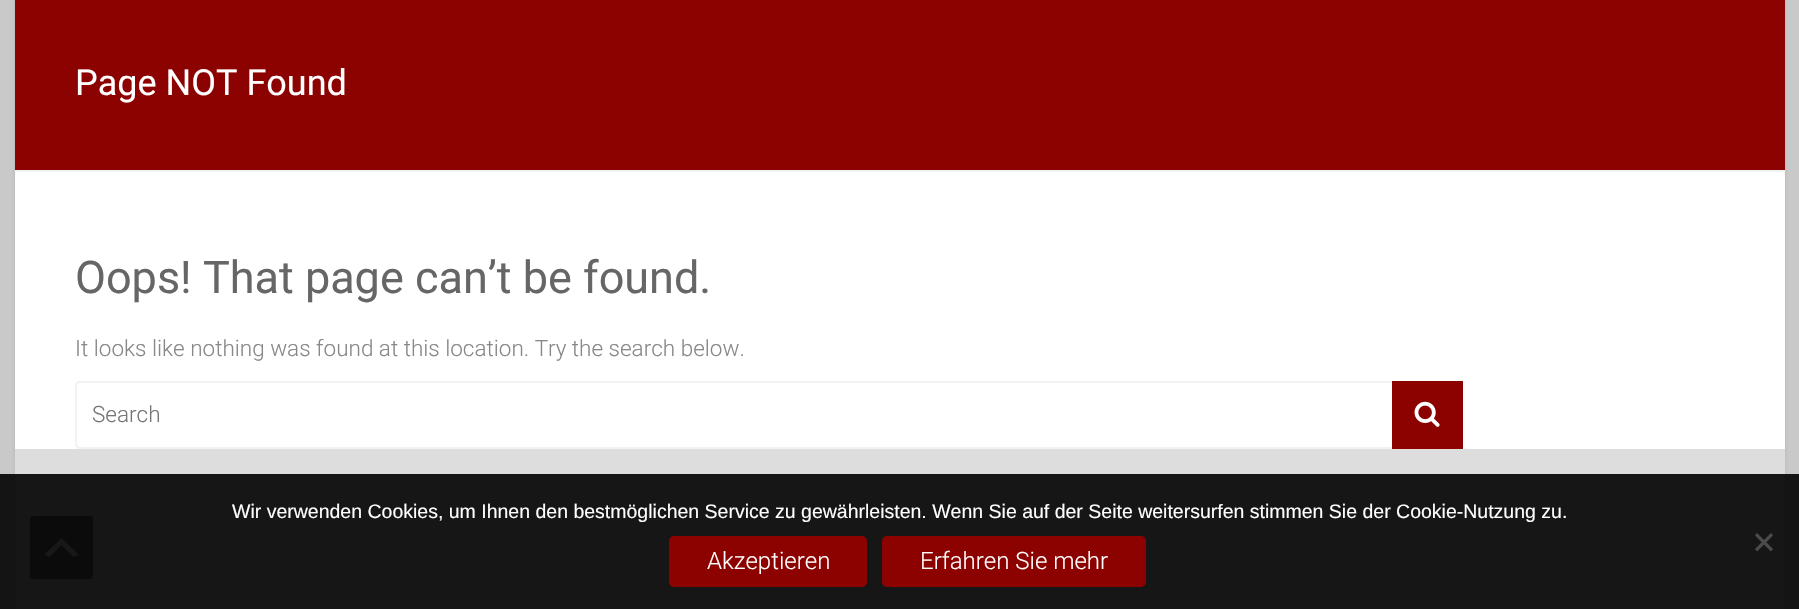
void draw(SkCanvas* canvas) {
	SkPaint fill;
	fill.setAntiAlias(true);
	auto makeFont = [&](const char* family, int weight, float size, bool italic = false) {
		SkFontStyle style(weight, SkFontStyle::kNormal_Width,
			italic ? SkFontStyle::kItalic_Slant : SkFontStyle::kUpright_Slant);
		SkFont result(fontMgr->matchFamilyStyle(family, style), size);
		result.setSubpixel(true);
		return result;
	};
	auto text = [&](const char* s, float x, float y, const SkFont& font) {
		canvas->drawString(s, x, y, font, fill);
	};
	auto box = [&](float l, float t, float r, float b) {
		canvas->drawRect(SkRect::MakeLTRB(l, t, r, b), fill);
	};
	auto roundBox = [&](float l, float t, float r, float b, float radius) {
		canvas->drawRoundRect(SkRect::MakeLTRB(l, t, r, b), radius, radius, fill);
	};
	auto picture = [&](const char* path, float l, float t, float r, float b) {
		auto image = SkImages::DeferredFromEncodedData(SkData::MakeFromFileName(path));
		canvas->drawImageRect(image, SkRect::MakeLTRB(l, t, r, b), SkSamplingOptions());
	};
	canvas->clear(0xFFC9C9C9);
	fill.setColor(0x1A000000);
	fill.setMaskFilter(SkMaskFilter::MakeBlur(kNormal_SkBlurStyle, 1.5f));
	canvas->drawRect(SkRect::MakeLTRB(15, -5, 1785, 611), fill);
	fill.setMaskFilter(nullptr);
	fill.setColor(0xFFFFFFFF);
	box(15, 172, 1785, 449);
	fill.setColor(0xFF8C0200);
	box(15, 0, 1785, 170);
	fill.setColor(0xFFF2F2F2);
	box(15, 170, 1785, 172);
	fill.setStyle(SkPaint::kStroke_Style);
	fill.setStrokeWidth(2);
	canvas->drawRoundRect(SkRect::MakeLTRB(76, 382, 1394, 448), 4, 4, fill);
	fill.setStyle(SkPaint::kFill_Style);
	fill.setColor(0xFF8C0200);
	box(1392, 381, 1463, 449);
	picture("image0.png", 1414, 401, 1440, 427);
	fill.setColor(0xFFDDDDDD);
	box(15, 449, 1785, 609);
	fill.setColor(0x80000000);
	roundBox(30, 516, 93, 579, 3);
	fill.setColor(0xFFEEEEEE);
	canvas->drawPath(SkPathBuilder().moveTo(73.5f, 557).lineTo(61.5f, 545).lineTo(49.5f, 557).lineTo(44.5f, 554.5f).lineTo(61.5f, 538).lineTo(78.5f, 554.5f).close().detach(), fill);
	fill.setColor(0xE6000000);
	box(0, 474, 1799, 609);
	fill.setColor(0xFF4B4B4B);
	canvas->drawPath(SkPathBuilder().moveTo(1771, 533).lineTo(1773, 535.5f).lineTo(1757, 551.5f).lineTo(1755, 549).close().detach(), fill);
	canvas->drawPath(SkPathBuilder().moveTo(1755, 535.5f).lineTo(1757, 533).lineTo(1773, 549).lineTo(1771, 551.5f).close().detach(), fill);
	fill.setColor(0xFF8C0200);
	roundBox(669, 536, 867, 587, 5);
	roundBox(882, 536, 1146, 587, 5);
	auto font1 = makeFont("Roboto", 400, 36);
	fill.setColor(0xFFFFFFFF);
	text("Page NOT Found", 75, 95, font1);
	auto font2 = makeFont("Roboto", 400, 45);
	fill.setColor(0xFF666666);
	text("Oops! That page can’t be found.", 75, 293, font2);
	auto font3 = makeFont("Roboto", 300, 22.5f);
	fill.setColor(0xFF888888);
	text("It looks like nothing was found at this location. Try the search below.", 75, 356, font3);
	fill.setColor(0xFF757575);
	text("Search", 92, 422, font3);
	auto font4 = makeFont("Liberation Sans", 400, 19.5f);
	fill.setColor(0xFFFFFFFF);
	text("Wir verwenden Cookies, um Ihnen den bestmöglichen Service zu gewährleisten. Wenn Sie auf der Seite weitersurfen stimmen Sie der Cookie-Nutzung zu.", 232, 518, font4);
	auto font5 = makeFont("Roboto", 300, 24);
	text("Akzeptieren", 707, 569, font5);
	text("Erfahren Sie mehr", 920, 569, font5);
}
